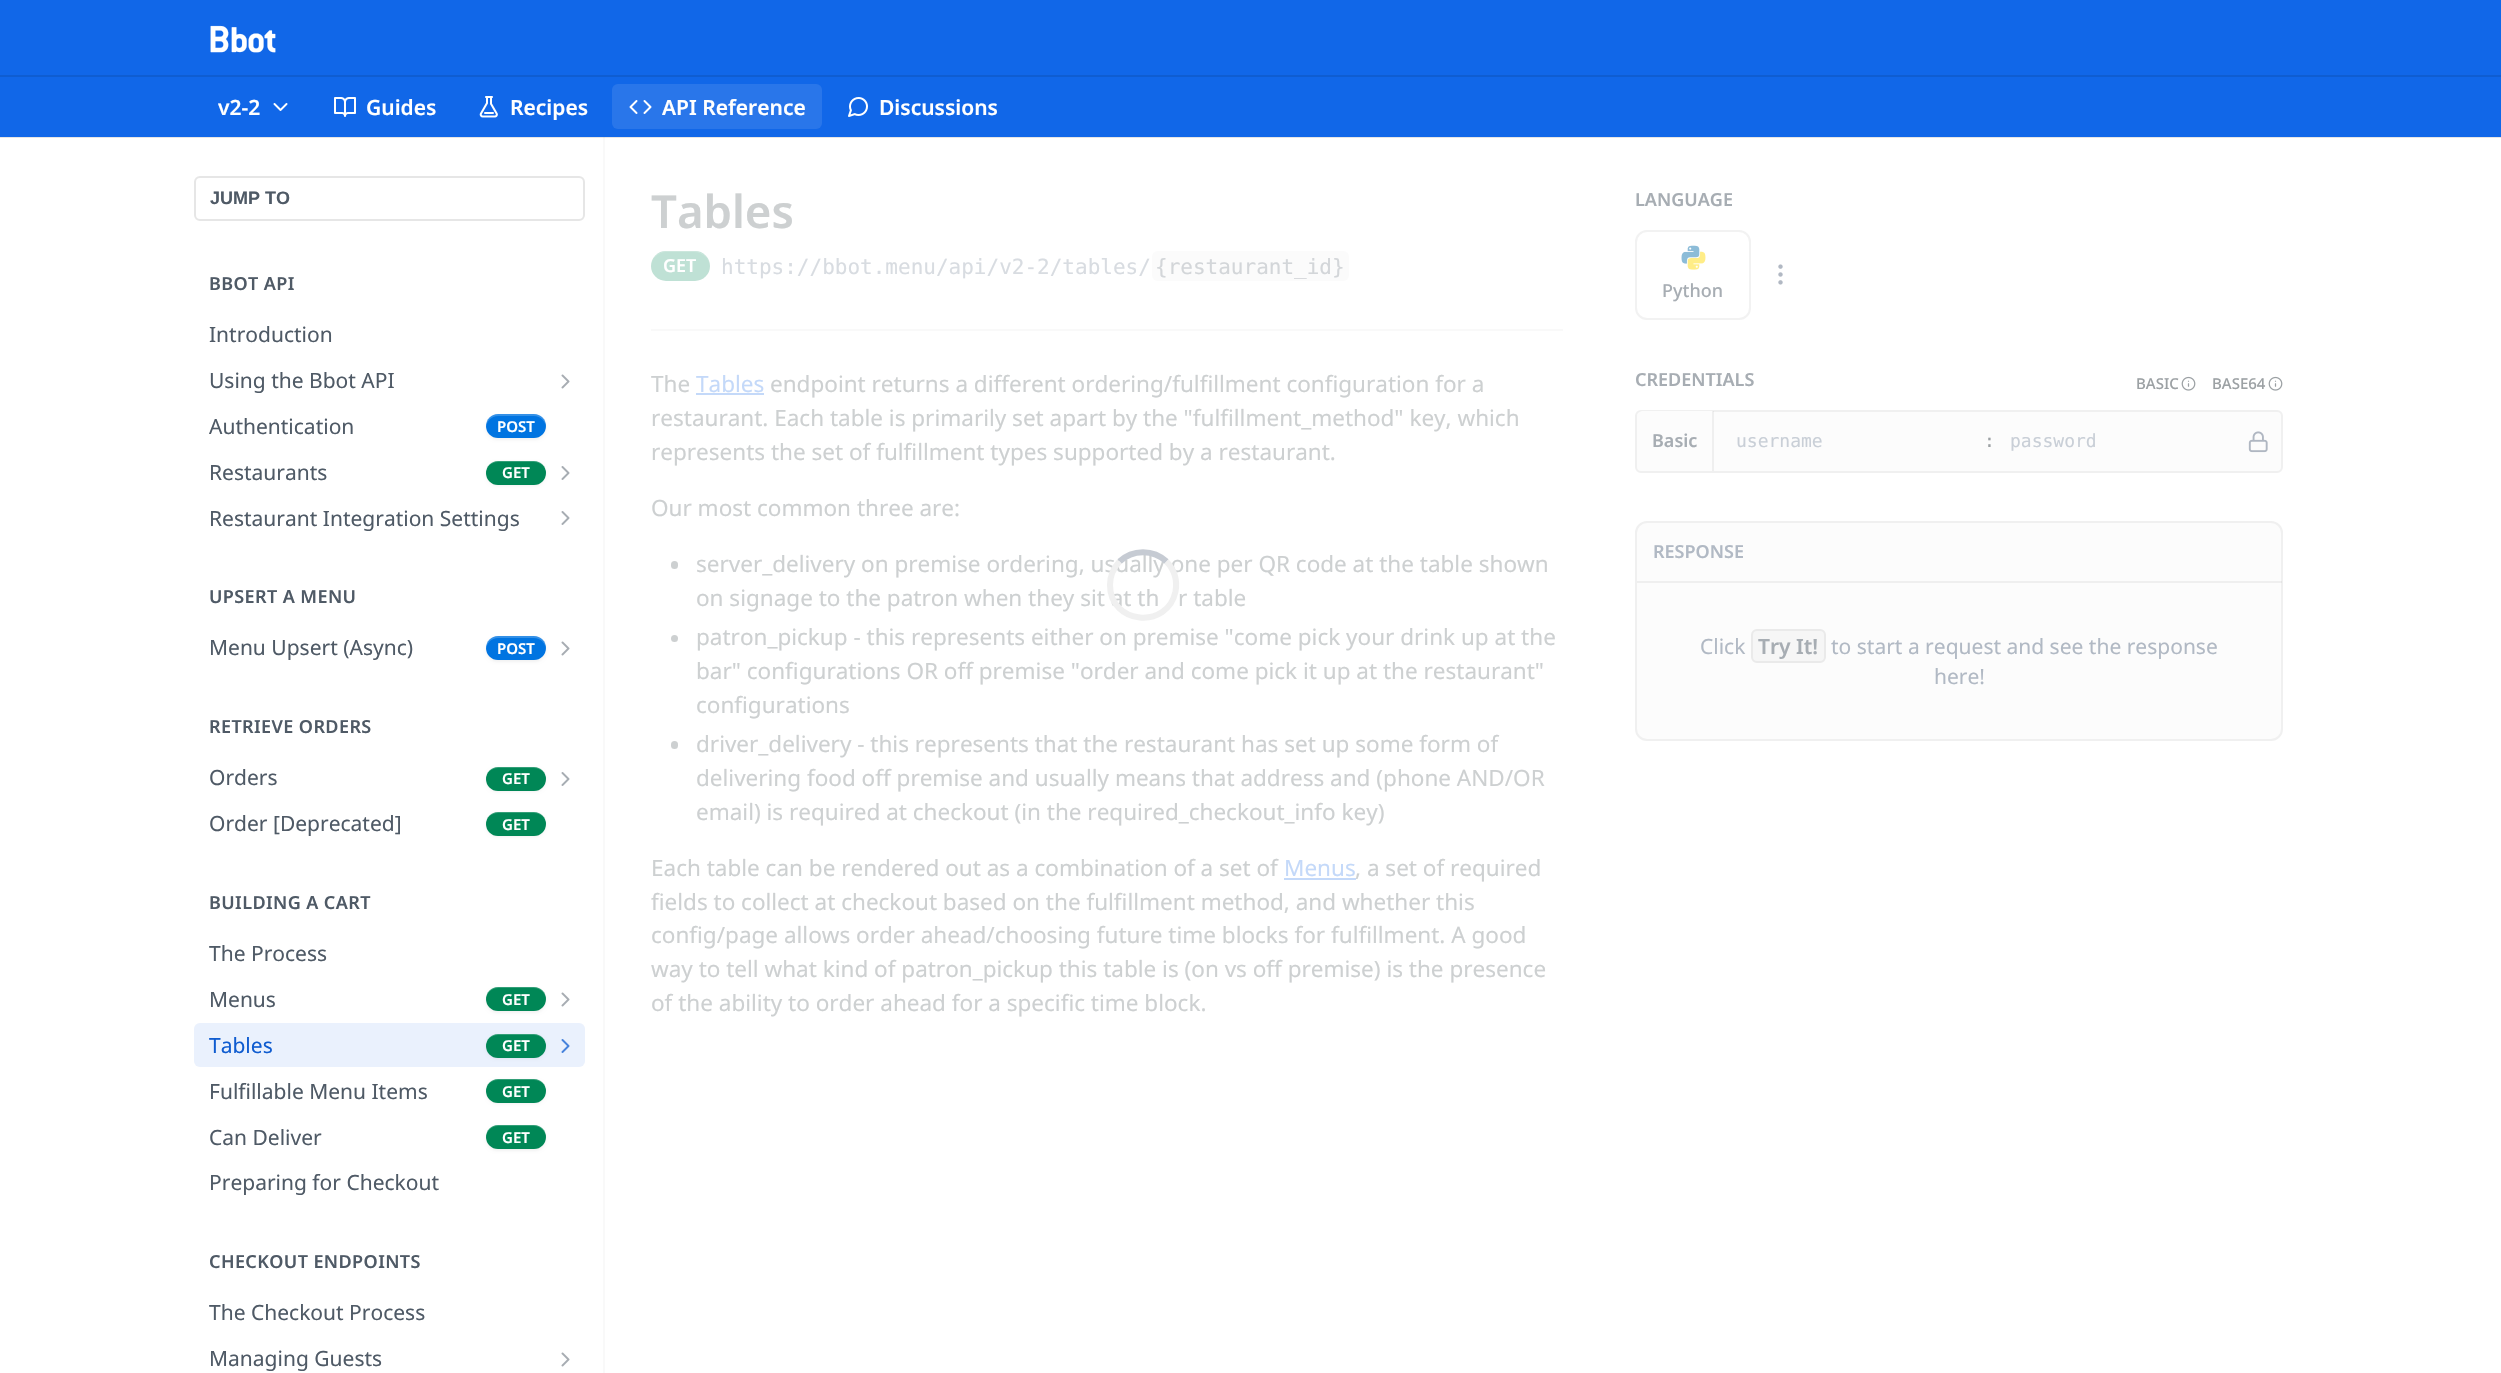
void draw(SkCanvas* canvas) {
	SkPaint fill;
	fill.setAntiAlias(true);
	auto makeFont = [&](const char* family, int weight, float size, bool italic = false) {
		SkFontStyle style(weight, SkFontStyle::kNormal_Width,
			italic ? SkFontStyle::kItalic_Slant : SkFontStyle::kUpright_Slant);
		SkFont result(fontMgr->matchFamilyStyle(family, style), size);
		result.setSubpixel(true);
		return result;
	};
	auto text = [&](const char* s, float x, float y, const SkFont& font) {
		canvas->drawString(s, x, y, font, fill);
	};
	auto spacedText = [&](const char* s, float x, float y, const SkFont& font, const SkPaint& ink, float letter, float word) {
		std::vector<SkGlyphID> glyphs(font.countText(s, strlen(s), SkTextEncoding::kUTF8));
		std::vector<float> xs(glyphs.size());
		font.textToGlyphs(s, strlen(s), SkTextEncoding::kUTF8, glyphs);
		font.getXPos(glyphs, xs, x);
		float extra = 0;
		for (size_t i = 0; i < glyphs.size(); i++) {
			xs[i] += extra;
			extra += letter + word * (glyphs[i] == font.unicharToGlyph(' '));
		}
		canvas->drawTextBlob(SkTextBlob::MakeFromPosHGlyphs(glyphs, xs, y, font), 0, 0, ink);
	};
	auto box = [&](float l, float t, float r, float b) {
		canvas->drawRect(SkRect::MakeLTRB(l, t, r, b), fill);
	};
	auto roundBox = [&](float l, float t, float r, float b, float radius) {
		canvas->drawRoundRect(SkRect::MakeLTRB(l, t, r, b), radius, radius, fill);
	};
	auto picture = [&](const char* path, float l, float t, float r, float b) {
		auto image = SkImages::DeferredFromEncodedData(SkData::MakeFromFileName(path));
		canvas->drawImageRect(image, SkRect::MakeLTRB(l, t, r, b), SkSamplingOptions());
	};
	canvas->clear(0xFFFFFFFF);
	fill.setColor(0xFFF9F9F9);
	canvas->drawPath(SkPathBuilder().moveTo(173, 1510).lineTo(173, 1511).lineTo(605, 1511).lineTo(605, 137).lineTo(603, 137).lineTo(603, 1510).close().detach(), fill);
	fill.setColor(0x1A000000);
	box(0, 137, 2501, 138);
	fill.setColor(0xFF1167E8);
	box(0, 0, 2501, 137);
	fill.setColor(0xFF0F5DD1);
	box(0, 75, 2501, 77);
	picture("image0.png", 210, 25, 276, 53);
	picture("image1.png", 273, 103, 288, 111);
	picture("image2.png", 334, 97, 356, 117);
	picture("image3.png", 479, 96, 498, 118);
	fill.setColor(0xFF2976EA);
	roundBox(612, 84, 822, 129, 6);
	picture("image4.png", 629, 100, 652, 114);
	picture("image5.png", 848, 97, 868, 117);
	fill.setStyle(SkPaint::kStroke_Style);
	fill.setStrokeWidth(2);
	fill.setColor(0xFFE6E6E6);
	canvas->drawRoundRect(SkRect::MakeLTRB(195, 177, 584, 220), 5, 5, fill);
	picture("image6.png", 561, 374, 570, 389);
	fill.setStyle(SkPaint::kFill_Style);
	fill.setColor(0x0D000000);
	fill.setMaskFilter(SkMaskFilter::MakeBlur(kNormal_SkBlurStyle, 1.5f));
	canvas->drawRoundRect(SkRect::MakeLTRB(486, 416, 546, 440), 12, 12, fill);
	fill.setMaskFilter(nullptr);
	fill.setColor(0xFF0074E1);
	roundBox(486, 414, 546, 438, 12);
	fill.setColor(0x33FFFFFF);
	canvas->drawPath(SkPathBuilder().moveTo(498, 416).lineTo(534, 416).cubicTo(541, 416, 545, 421, 546, 427).cubicTo(547, 410, 526, 414, 516, 414).cubicTo(506, 414, 485, 410, 486, 427).cubicTo(487, 421, 491, 416, 498, 416).close().detach(), fill);
	fill.setColor(0x0D000000);
	fill.setMaskFilter(SkMaskFilter::MakeBlur(kNormal_SkBlurStyle, 1.5f));
	canvas->drawRoundRect(SkRect::MakeLTRB(486, 462, 546, 486), 12, 12, fill);
	fill.setMaskFilter(nullptr);
	fill.setColor(0xFF008756);
	roundBox(486, 461, 546, 485, 12);
	fill.setColor(0x33FFFFFF);
	canvas->drawPath(SkPathBuilder().moveTo(498, 462).lineTo(534, 462).cubicTo(541, 462, 546, 467, 546, 473).cubicTo(547, 457, 526, 461, 516, 461).cubicTo(506, 461, 485, 457, 486, 473).cubicTo(486, 467, 491, 462, 498, 462).close().detach(), fill);
	picture("image7.png", 561, 466, 570, 480);
	picture("image7.png", 561, 511, 570, 525);
	fill.setColor(0x0D000000);
	fill.setMaskFilter(SkMaskFilter::MakeBlur(kNormal_SkBlurStyle, 1.5f));
	canvas->drawRoundRect(SkRect::MakeLTRB(486, 638, 546, 662), 12, 12, fill);
	fill.setMaskFilter(nullptr);
	fill.setColor(0xFF0074E1);
	roundBox(486, 636, 546, 660, 12);
	fill.setColor(0x33FFFFFF);
	canvas->drawPath(SkPathBuilder().moveTo(498, 638).lineTo(534, 638).cubicTo(541, 638, 545, 643, 546, 649).cubicTo(547, 632, 526, 636, 516, 636).cubicTo(506, 636, 485, 632, 486, 649).cubicTo(487, 643, 491, 638, 498, 638).close().detach(), fill);
	picture("image6.png", 561, 641, 570, 656);
	fill.setColor(0x0D000000);
	fill.setMaskFilter(SkMaskFilter::MakeBlur(kNormal_SkBlurStyle, 1.5f));
	canvas->drawRoundRect(SkRect::MakeLTRB(486, 768, 546, 792), 12, 12, fill);
	fill.setMaskFilter(nullptr);
	fill.setColor(0xFF008756);
	roundBox(486, 767, 546, 791, 12);
	fill.setColor(0x33FFFFFF);
	canvas->drawPath(SkPathBuilder().moveTo(498, 768).lineTo(534, 768).cubicTo(541, 768, 546, 773, 546, 779).cubicTo(547, 763, 526, 767, 516, 767).cubicTo(506, 767, 485, 763, 486, 779).cubicTo(486, 773, 491, 768, 498, 768).close().detach(), fill);
	picture("image7.png", 561, 772, 570, 786);
	fill.setColor(0x0D000000);
	fill.setMaskFilter(SkMaskFilter::MakeBlur(kNormal_SkBlurStyle, 1.5f));
	canvas->drawRoundRect(SkRect::MakeLTRB(486, 813, 546, 837), 12, 12, fill);
	fill.setMaskFilter(nullptr);
	fill.setColor(0xFF008756);
	roundBox(486, 812, 546, 836, 12);
	fill.setColor(0x33FFFFFF);
	canvas->drawPath(SkPathBuilder().moveTo(498, 813).lineTo(534, 813).cubicTo(541, 813, 546, 818, 546, 824).cubicTo(547, 808, 526, 812, 516, 812).cubicTo(506, 812, 485, 808, 486, 824).cubicTo(486, 818, 491, 813, 498, 813).close().detach(), fill);
	fill.setColor(0x0D000000);
	fill.setMaskFilter(SkMaskFilter::MakeBlur(kNormal_SkBlurStyle, 1.5f));
	canvas->drawRoundRect(SkRect::MakeLTRB(486, 989, 546, 1013), 12, 12, fill);
	fill.setMaskFilter(nullptr);
	fill.setColor(0xFF008756);
	roundBox(486, 987, 546, 1011, 12);
	fill.setColor(0x33FFFFFF);
	canvas->drawPath(SkPathBuilder().moveTo(498, 988).lineTo(534, 988).cubicTo(541, 988, 546, 994, 546, 1000).cubicTo(547, 983, 526, 987, 516, 987).cubicTo(506, 987, 485, 983, 486, 1000).cubicTo(486, 994, 491, 988, 498, 988).close().detach(), fill);
	picture("image6.png", 561, 992, 570, 1007);
	fill.setColor(0xFFEAF1FD);
	roundBox(194, 1023, 585, 1067, 6);
	fill.setColor(0x0D000000);
	fill.setMaskFilter(SkMaskFilter::MakeBlur(kNormal_SkBlurStyle, 1.5f));
	canvas->drawRoundRect(SkRect::MakeLTRB(486, 1035, 546, 1059), 12, 12, fill);
	fill.setMaskFilter(nullptr);
	fill.setColor(0xFF008756);
	roundBox(486, 1034, 546, 1058, 12);
	fill.setColor(0x33FFFFFF);
	canvas->drawPath(SkPathBuilder().moveTo(498, 1035).lineTo(534, 1035).cubicTo(541, 1035, 546, 1040, 546, 1046).cubicTo(547, 1030, 526, 1034, 516, 1034).cubicTo(506, 1034, 485, 1030, 486, 1046).cubicTo(486, 1040, 491, 1035, 498, 1035).close().detach(), fill);
	picture("image8.png", 561, 1039, 570, 1053);
	fill.setColor(0x0D000000);
	fill.setMaskFilter(SkMaskFilter::MakeBlur(kNormal_SkBlurStyle, 1.5f));
	canvas->drawRoundRect(SkRect::MakeLTRB(486, 1080, 546, 1104), 12, 12, fill);
	fill.setMaskFilter(nullptr);
	fill.setColor(0xFF008756);
	roundBox(486, 1079, 546, 1103, 12);
	fill.setColor(0x33FFFFFF);
	canvas->drawPath(SkPathBuilder().moveTo(498, 1080).lineTo(534, 1080).cubicTo(541, 1080, 546, 1085, 546, 1091).cubicTo(547, 1075, 526, 1079, 516, 1079).cubicTo(506, 1079, 485, 1075, 486, 1091).cubicTo(486, 1085, 491, 1080, 498, 1080).close().detach(), fill);
	fill.setColor(0x0D000000);
	fill.setMaskFilter(SkMaskFilter::MakeBlur(kNormal_SkBlurStyle, 1.5f));
	canvas->drawRoundRect(SkRect::MakeLTRB(486, 1127, 546, 1151), 12, 12, fill);
	fill.setMaskFilter(nullptr);
	fill.setColor(0xFF008756);
	roundBox(486, 1125, 546, 1149, 12);
	fill.setColor(0x33FFFFFF);
	canvas->drawPath(SkPathBuilder().moveTo(498, 1126).lineTo(534, 1126).cubicTo(541, 1126, 546, 1132, 546, 1138).cubicTo(547, 1121, 526, 1125, 516, 1125).cubicTo(506, 1125, 485, 1121, 486, 1138).cubicTo(486, 1132, 491, 1126, 498, 1126).close().detach(), fill);
	picture("image6.png", 561, 1352, 570, 1367);
	fill.setColor(0xFFF9F9F9);
	box(651, 329, 1563, 331);
	fill.setColor(0xFFBFE1D5);
	roundBox(651, 251, 710, 281, 15);
	fill.setColor(0x33FFFFFF);
	canvas->drawPath(SkPathBuilder().moveTo(666, 252).lineTo(694, 252).cubicTo(703, 252, 710, 259, 710, 267).cubicTo(710, 263, 709, 260, 707, 258).cubicTo(701, 249, 690, 251, 680, 251).cubicTo(671, 251, 660, 249, 654, 258).cubicTo(652, 260, 651, 263, 651, 267).cubicTo(651, 259, 658, 252, 666, 252).close().detach(), fill);
	fill.setColor(0xFFFBFBFB);
	roundBox(1152, 251, 1349, 281, 6);
	fill.setColor(0xFFC4D9F9);
	box(696, 393, 764, 395);
	fill.setColor(0xFFCDD0D1);
	roundBox(671, 561, 678, 569, 3.5f);
	canvas->drawCircle(674.5f, 638.5f, 3.5f, fill);
	roundBox(671, 741, 678, 749, 3.5f);
	fill.setColor(0xFFC4D9F9);
	box(1284, 878, 1356, 880);
	picture("image9.png", 1778, 264, 1783, 285);
	fill.setStyle(SkPaint::kStroke_Style);
	fill.setColor(0xFFF2F2F2);
	canvas->drawRoundRect(SkRect::MakeLTRB(1636, 231, 1750, 319), 11, 11, fill);
	picture("image10.png", 1681, 245, 1700, 264);
	picture("image11.png", 1687, 251, 1706, 270);
	picture("image12.png", 2181, 376, 2196, 391);
	picture("image12.png", 2268, 376, 2283, 391);
	fill.setStyle(SkPaint::kFill_Style);
	fill.setColor(0xFFFCFCFC);
	canvas->drawRoundRect(SkRect::MakeLTRB(1636, 411, 2282, 472), 5, 5, fill);
	fill.setStyle(SkPaint::kStroke_Style);
	fill.setColor(0xFFF0F0F0);
	canvas->drawRoundRect(SkRect::MakeLTRB(1636, 411, 2282, 472), 5, 5, fill);
	fill.setStyle(SkPaint::kFill_Style);
	fill.setColor(0xFFFCFCFC);
	canvas->drawPath(SkPathBuilder().moveTo(1643, 411).lineTo(1713, 411).lineTo(1713, 471).lineTo(1643, 471).cubicTo(1639.5f, 471, 1637, 468.5f, 1637, 465).lineTo(1637, 417).cubicTo(1637, 413.5f, 1639.5f, 411, 1643, 411).close().detach(), fill);
	fill.setColor(0x1A808080);
	box(1712, 411, 1714, 471);
	picture("image13.png", 2248, 431, 2268, 453);
	fill.setColor(0xFFFCFCFC);
	canvas->drawRoundRect(SkRect::MakeLTRB(1636, 522, 2282, 740), 11, 11, fill);
	fill.setStyle(SkPaint::kStroke_Style);
	fill.setColor(0xFFF0F0F0);
	canvas->drawRoundRect(SkRect::MakeLTRB(1636, 522, 2282, 740), 11, 11, fill);
	fill.setStyle(SkPaint::kFill_Style);
	fill.setColor(0x1A808080);
	box(1637, 581, 2282, 583);
	fill.setColor(0xFFF6F6F6);
	canvas->drawRoundRect(SkRect::MakeLTRB(1752, 630, 1825, 662), 5, 5, fill);
	fill.setStyle(SkPaint::kStroke_Style);
	fill.setColor(0xFFEAEAEA);
	canvas->drawRoundRect(SkRect::MakeLTRB(1752, 630, 1825, 662), 5, 5, fill);
	auto font1 = makeFont("Noto Sans", 600, 21);
	fill.setStyle(SkPaint::kFill_Style);
	fill.setColor(0xFFFFFFFF);
	text("v2-2", 218, 115, font1);
	text("Guides", 366, 115, font1);
	text("Recipes", 510, 115, font1);
	text("API Reference", 662, 115, font1);
	text("Discussions", 879, 115, font1);
	auto font2 = makeFont("Liberation Sans", 700, 18);
	fill.setColor(0xFF4F5A66);
	text("JUMP TO", 210, 204, font2);
	auto font3 = makeFont("Noto Sans", 600, 18);
	spacedText("BBOT API", 209, 290, font3, fill, 0.4f, 0);
	auto font4 = makeFont("Noto Sans", 400, 21);
	text("Introduction", 209, 342, font4);
	text("Using the Bbot API", 209, 388, font4);
	text("Authentication", 209, 434, font4);
	auto font5 = makeFont("Noto Sans", 600, 15);
	fill.setColor(0xFFFFFFFF);
	text("POST", 497, 432, font5);
	fill.setColor(0xFF4F5A66);
	text("Restaurants", 209, 480, font4);
	fill.setColor(0xFFFFFFFF);
	text("GET", 502, 478, font5);
	fill.setColor(0xFF4F5A66);
	text("Restaurant Integration Settings", 209, 526, font4);
	spacedText("UPSERT A MENU", 209, 603, font3, fill, 0.4f, 0);
	text("Menu Upsert (Async)", 209, 655, font4);
	fill.setColor(0xFFFFFFFF);
	text("POST", 497, 654, font5);
	fill.setColor(0xFF4F5A66);
	spacedText("RETRIEVE ORDERS", 209, 733, font3, fill, 0.4f, 0);
	text("Orders", 209, 785, font4);
	fill.setColor(0xFFFFFFFF);
	text("GET", 502, 784, font5);
	fill.setColor(0xFF4F5A66);
	text("Order [Deprecated]", 209, 831, font4);
	fill.setColor(0xFFFFFFFF);
	text("GET", 502, 830, font5);
	fill.setColor(0xFF4F5A66);
	spacedText("BUILDING A CART", 209, 909, font3, fill, 0.4f, 0);
	text("The Process", 209, 961, font4);
	text("Menus", 209, 1007, font4);
	fill.setColor(0xFFFFFFFF);
	text("GET", 502, 1005, font5);
	fill.setColor(0xFF0F5CD0);
	text("Tables", 209, 1053, font4);
	fill.setColor(0xFFFFFFFF);
	text("GET", 502, 1051, font5);
	fill.setColor(0xFF4F5A66);
	text("Fulfillable Menu Items", 209, 1099, font4);
	fill.setColor(0xFFFFFFFF);
	text("GET", 502, 1097, font5);
	fill.setColor(0xFF4F5A66);
	text("Can Deliver", 209, 1145, font4);
	fill.setColor(0xFFFFFFFF);
	text("GET", 502, 1143, font5);
	fill.setColor(0xFF4F5A66);
	text("Preparing for Checkout", 209, 1190, font4);
	spacedText("CHECKOUT ENDPOINTS", 209, 1268, font3, fill, 0.4f, 0);
	text("The Checkout Process", 209, 1320, font4);
	text("Managing Guests", 209, 1366, font4);
	auto font6 = makeFont("Noto Sans", 600, 45.5f);
	fill.setColor(0xFFCDD0D1);
	text("Tables", 651, 228, font6);
	fill.setColor(0xFFFFFFFF);
	text("GET", 663, 272, font3);
	auto font7 = makeFont("DejaVu Sans Mono", 400, 21);
	fill.setColor(0xFFD8DCE1);
	text("https://bbot.menu/api/v2-2/tables/", 721, 274, font7);
	fill.setColor(0xFFD3D6D9);
	text("{restaurant_id}", 1155, 274, font7);
	auto font8 = makeFont("Noto Sans", 400, 22.5f);
	fill.setColor(0xFFCDD0D1);
	text("The", 651, 392, font8);
	fill.setColor(0xFFC4D9F9);
	text("Tables", 696, 392, font8);
	fill.setColor(0xFFCDD0D1);
	text("endpoint returns a different ordering/fulfillment configuration for a", 770, 392, font8);
	text("restaurant. Each table is primarily set apart by the \"fulfillment_method\" key, which", 651, 426, font8);
	text("represents the set of fulfillment types supported by a restaurant.", 651, 460, font8);
	text("Our most common three are:", 651, 516, font8);
	text("server_delivery on premise ordering, usually one per QR code at the table shown", 696, 572, font8);
	text("on signage to the patron when they sit at th", 696, 606, font8);
	text("r table", 1178, 606, font8);
	text("patron_pickup - this represents either on premise \"come pick your drink up at the", 696, 645, font8);
	text("bar\" configurations OR off premise \"order and come pick it up at the restaurant\"", 696, 679, font8);
	text("configurations", 696, 713, font8);
	text("driver_delivery - this represents that the restaurant has set up some form of", 696, 752, font8);
	text("delivering food off premise and usually means that address and (phone AND/OR", 696, 786, font8);
	text("email) is required at checkout (in the required_checkout_info key)", 696, 820, font8);
	text("Each table can be rendered out as a combination of a set of", 651, 876, font8);
	fill.setColor(0xFFC4D9F9);
	text("Menus", 1284, 876, font8);
	fill.setColor(0xFFCDD0D1);
	text(", a set of required", 1355, 876, font8);
	text("fields to collect at checkout based on the fulfillment method, and whether this", 651, 910, font8);
	text("config/page allows order ahead/choosing future time blocks for fulfillment. A good", 651, 943, font8);
	text("way to tell what kind of patron_pickup this table is (on vs off premise) is the presence", 651, 977, font8);
	text("of the ability to order ahead for a specific time block.", 651, 1011, font8);
	fill.setStyle(SkPaint::kStroke_Style);
	fill.setStrokeWidth(6);
	fill.setColor(0xFFC6CBD3);
	canvas->drawPath(SkPathBuilder().moveTo(1119.5f, 561.5f).cubicTo(1132.5f, 549, 1153.5f, 549, 1166.5f, 561.5f).detach(), fill);
	fill.setColor(0xFFF0F0F0);
	canvas->drawPath(SkPathBuilder().moveTo(1166.5f, 561.5f).cubicTo(1174, 569.5f, 1177.5f, 580.5f, 1175.5f, 591.5f).cubicTo(1167.5f, 630, 1110, 624.5f, 1110, 585).cubicTo(1110, 576.5f, 1113.5f, 568, 1119.5f, 561.5f).detach(), fill);
	fill.setStyle(SkPaint::kFill_Style);
	fill.setColor(0xFFA7ADB3);
	text("LANGUAGE", 1635, 206, font3);
	auto font9 = makeFont("Noto Sans", 500, 18);
	text("Python", 1662, 297, font9);
	text("CREDENTIALS", 1635, 386, font3);
	auto font10 = makeFont("Noto Sans", 500, 15);
	fill.setColor(0xFF9CA1A4);
	text("BASIC", 2136, 389, font10);
	text("BASE64", 2212, 389, font10);
	fill.setColor(0xFFA7ADB3);
	text("Basic", 1652, 447, font3);
	auto font11 = makeFont("DejaVu Sans Mono", 400, 18);
	fill.setColor(0xFFC9CFD7);
	text("username", 1736, 447, font11);
	fill.setColor(0xFF9CA1A4);
	text(":", 1984, 447, font11);
	fill.setColor(0xFFC9CFD7);
	text("password", 2010, 447, font11);
	fill.setColor(0xFFB1B9C4);
	text("RESPONSE", 1653, 558, font3);
	text("Click", 1700, 654, font4);
	fill.setColor(0xFFA7ADB3);
	text("Try It!", 1758, 654, font1);
	fill.setColor(0xFFB1B9C4);
	text("to start a request and see the response", 1831, 654, font4);
	text("here!", 1934, 684, font4);
}
